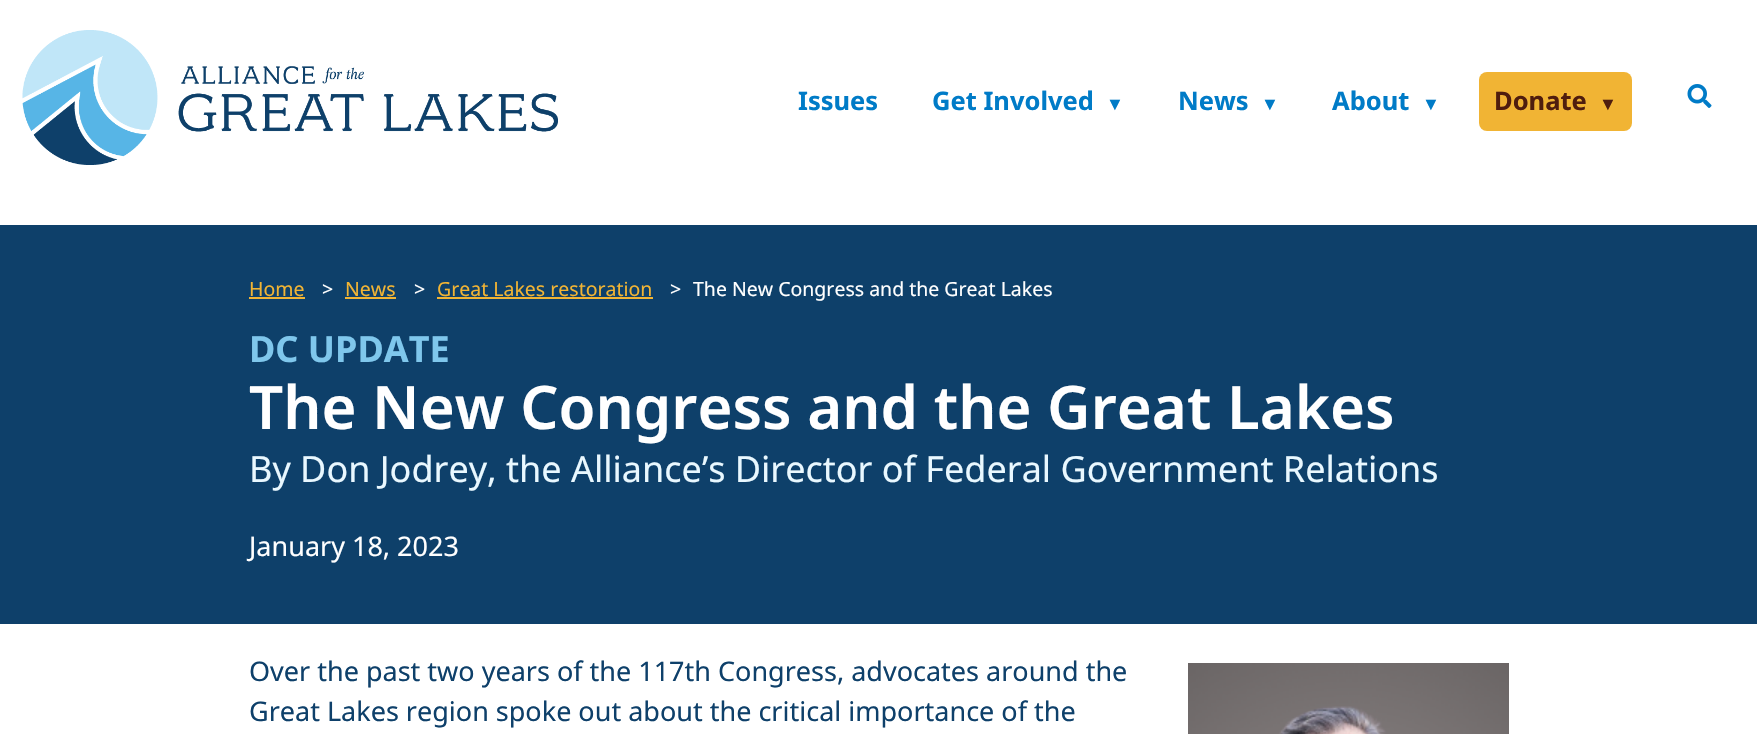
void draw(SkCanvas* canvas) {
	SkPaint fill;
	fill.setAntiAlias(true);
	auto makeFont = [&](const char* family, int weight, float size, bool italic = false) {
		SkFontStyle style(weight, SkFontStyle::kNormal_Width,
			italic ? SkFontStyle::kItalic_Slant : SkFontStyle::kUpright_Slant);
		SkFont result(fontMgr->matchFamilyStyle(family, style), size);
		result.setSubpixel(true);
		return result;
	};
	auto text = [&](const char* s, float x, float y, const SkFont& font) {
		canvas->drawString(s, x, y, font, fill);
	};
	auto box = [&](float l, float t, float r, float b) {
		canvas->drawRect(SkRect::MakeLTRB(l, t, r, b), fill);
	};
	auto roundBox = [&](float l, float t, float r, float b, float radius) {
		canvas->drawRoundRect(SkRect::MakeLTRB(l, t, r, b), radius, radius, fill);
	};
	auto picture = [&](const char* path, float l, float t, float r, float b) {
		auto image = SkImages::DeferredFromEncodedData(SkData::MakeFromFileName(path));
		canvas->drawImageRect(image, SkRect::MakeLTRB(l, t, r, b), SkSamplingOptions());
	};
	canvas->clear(0xFFFFFFFF);
	picture("image0.png", 22, 30, 558, 165);
	fill.setColor(0xFFF1B434);
	roundBox(1479, 72, 1632, 131, 8);
	picture("image1.png", 1687, 84, 1712, 108);
	fill.setColor(0xFF0E406A);
	box(0, 225, 1757, 624);
	fill.setColor(0xFFF1B434);
	box(249, 297, 305, 299);
	box(345, 297, 396, 299);
	box(437, 297, 653, 299);
	picture("image2.png", 1188, 663, 1509, 734);
	auto font1 = makeFont("Noto Sans", 700, 25.5f);
	fill.setColor(0xFF007BC7);
	text("Issues", 798, 110, font1);
	text("Get Involved", 932, 110, font1);
	auto font2 = makeFont("Liberation Sans", 700, 18);
	text("▼", 1106, 110, font2);
	text("News", 1178, 110, font1);
	text("▼", 1261, 110, font2);
	text("About", 1332, 110, font1);
	text("▼", 1422, 110, font2);
	fill.setColor(0xFF4F1D0E);
	text("Donate", 1494, 110, font1);
	text("▼", 1599, 110, font2);
	auto font3 = makeFont("Noto Sans", 400, 19.5f);
	fill.setColor(0xFFF1B434);
	text("Home", 249, 296, font3);
	fill.setColor(0xFFFFFFFF);
	text(">", 322, 296, font3);
	fill.setColor(0xFFF1B434);
	text("News", 345, 296, font3);
	fill.setColor(0xFFFFFFFF);
	text(">", 414, 296, font3);
	fill.setColor(0xFFF1B434);
	text("Great Lakes restoration", 437, 296, font3);
	fill.setColor(0xFFFFFFFF);
	text(">", 670, 296, font3);
	text("The New Congress and the Great Lakes", 693, 296, font3);
	auto font4 = makeFont("Noto Sans", 700, 36);
	fill.setColor(0xFF7FC7EC);
	text("DC UPDATE", 249, 362, font4);
	auto font5 = makeFont("Noto Sans", 600, 60);
	fill.setColor(0xFFFFFFFF);
	text("The New Congress and the Great Lakes", 249, 429, font5);
	auto font6 = makeFont("Noto Sans", 400, 36);
	fill.setColor(0xFFE9F8FF);
	text("By Don Jodrey, the Alliance’s Director of Federal Government Relations", 249, 482, font6);
	auto font7 = makeFont("Noto Sans", 400, 27);
	fill.setColor(0xFFFFFFFF);
	text("January 18, 2023", 249, 556, font7);
	fill.setColor(0xFF0E406A);
	text("Over the past two years of the 117th Congress, advocates around the", 249, 681, font7);
	text("Great Lakes region spoke out about the critical importance of the", 249, 721, font7);
}
